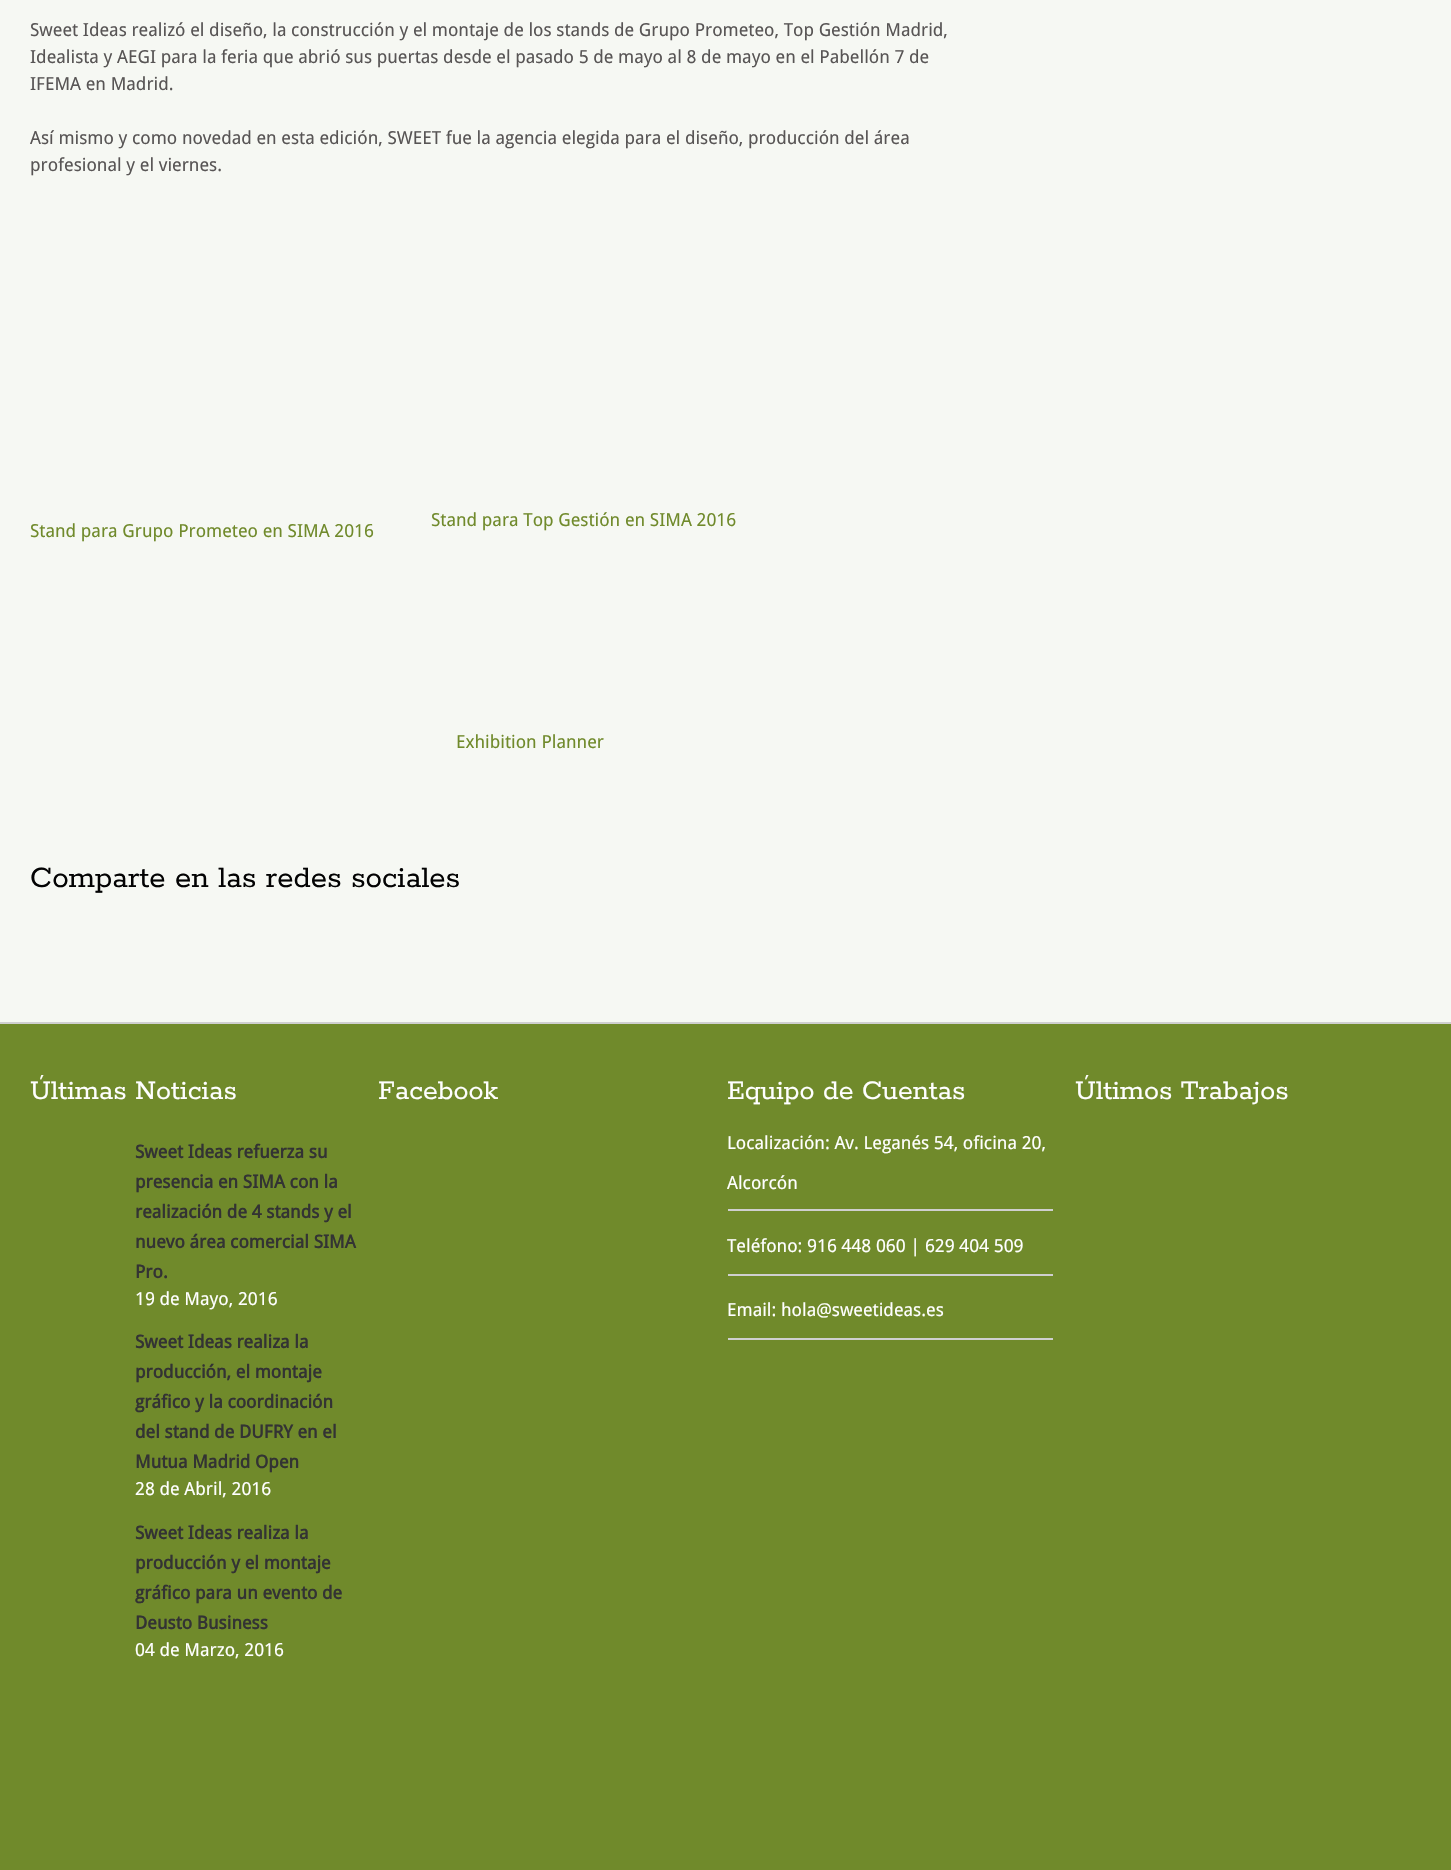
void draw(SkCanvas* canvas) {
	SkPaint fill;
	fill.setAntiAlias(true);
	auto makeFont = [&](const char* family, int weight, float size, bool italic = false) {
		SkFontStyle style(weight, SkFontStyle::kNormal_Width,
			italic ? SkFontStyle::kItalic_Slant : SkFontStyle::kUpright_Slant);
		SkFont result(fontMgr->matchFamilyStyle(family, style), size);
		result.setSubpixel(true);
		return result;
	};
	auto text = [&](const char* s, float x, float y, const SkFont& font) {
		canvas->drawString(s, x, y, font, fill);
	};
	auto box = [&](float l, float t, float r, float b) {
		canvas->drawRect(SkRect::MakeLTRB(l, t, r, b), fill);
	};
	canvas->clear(0xFFF6F8F3);
	fill.setColor(0xFF708A2B);
	box(0, 1024, 1451, 1870);
	fill.setColor(0xFFCFCFCF);
	box(0, 1022, 1451, 1024);
	box(728, 1209, 1053, 1211);
	box(728, 1274, 1053, 1276);
	box(728, 1338, 1053, 1340);
	auto font1 = makeFont("Droid Sans", 400, 18);
	fill.setColor(0xFF585555);
	text("Sweet Ideas realizó el diseño, la construcción y el montaje de los stands de Grupo Prometeo, Top Gestión Madrid,", 30, 36, font1);
	text("Idealista y AEGI para la feria que abrió sus puertas desde el pasado 5 de mayo al 8 de mayo en el Pabellón 7 de", 30, 63, font1);
	text("IFEMA en Madrid.", 30, 90, font1);
	text("Así mismo y como novedad en esta edición, SWEET fue la agencia elegida para el diseño, producción del área", 30, 144, font1);
	text("profesional y el viernes.", 30, 171, font1);
	fill.setColor(0xFF708A2B);
	text("Stand para Grupo Prometeo en SIMA 2016", 30, 537, font1);
	text("Stand para Top Gestión en SIMA 2016", 431, 526, font1);
	text("Exhibition Planner", 456, 748, font1);
	auto font2 = makeFont("Rokkitt", 600, 33);
	fill.setColor(0xFF030303);
	text("Comparte en las redes sociales", 30, 887, font2);
	auto font3 = makeFont("Rokkitt", 600, 30);
	fill.setColor(0xFFFFFFFF);
	text("Últimas Noticias", 30, 1099, font3);
	auto font4 = makeFont("Droid Sans", 700, 18);
	fill.setColor(0xFF333333);
	text("Sweet Ideas refuerza su", 135, 1158, font4);
	text("presencia en SIMA con la", 135, 1188, font4);
	text("realización de 4 stands y el", 135, 1218, font4);
	text("nuevo área comercial SIMA", 135, 1248, font4);
	text("Pro.", 135, 1278, font4);
	fill.setColor(0xFFFFFFFF);
	text("19 de Mayo, 2016", 135, 1305, font1);
	fill.setColor(0xFF333333);
	text("Sweet Ideas realiza la", 135, 1348, font4);
	text("producción, el montaje", 135, 1378, font4);
	text("gráfico y la coordinación", 135, 1408, font4);
	text("del stand de DUFRY en el", 135, 1438, font4);
	text("Mutua Madrid Open", 135, 1468, font4);
	fill.setColor(0xFFFFFFFF);
	text("28 de Abril, 2016", 135, 1495, font1);
	fill.setColor(0xFF333333);
	text("Sweet Ideas realiza la", 135, 1539, font4);
	text("producción y el montaje", 135, 1569, font4);
	text("gráfico para un evento de", 135, 1599, font4);
	text("Deusto Business", 135, 1629, font4);
	fill.setColor(0xFFFFFFFF);
	text("04 de Marzo, 2016", 135, 1656, font1);
	text("Facebook", 378, 1099, font3);
	text("Equipo de Cuentas", 727, 1099, font3);
	text("Localización: Av. Leganés 54, oficina 20,", 727, 1149, font1);
	text("Alcorcón", 727, 1189, font1);
	text("Teléfono: 916 448 060 | 629 404 509", 727, 1252, font1);
	text("Email: hola@sweetideas.es", 727, 1316, font1);
	text("Últimos Trabajos", 1075, 1099, font3);
}
